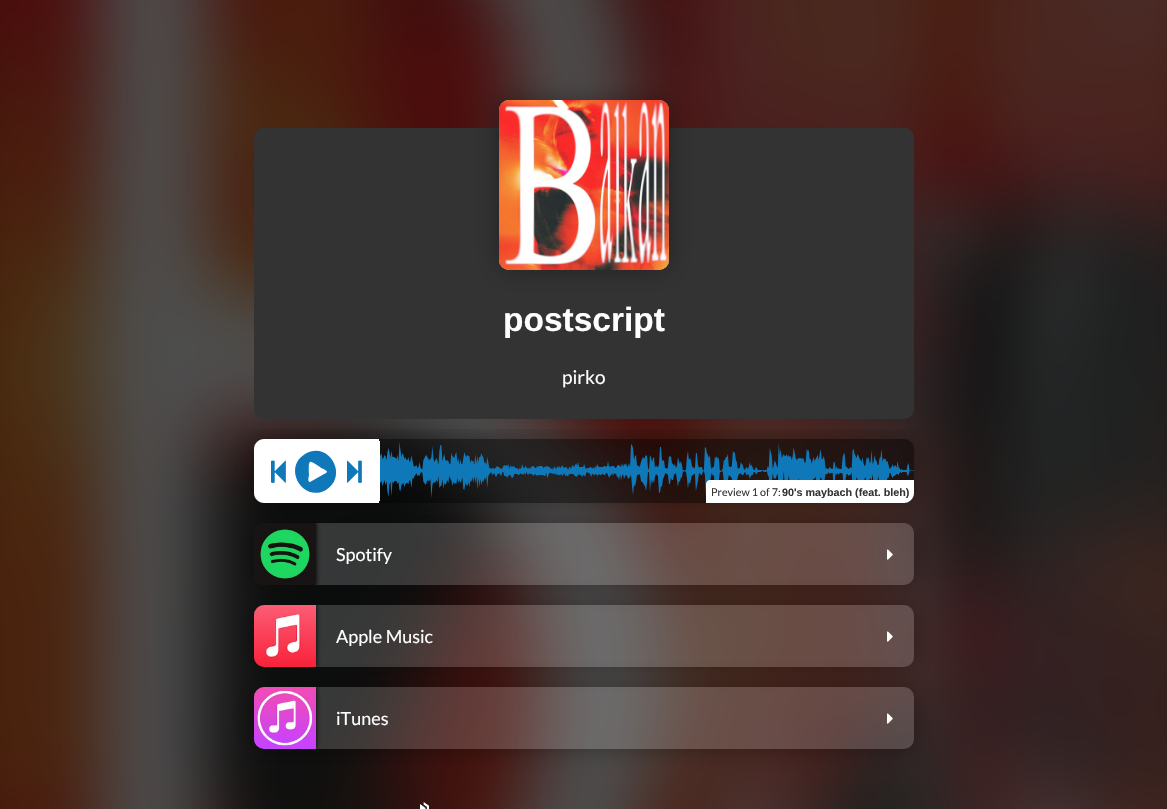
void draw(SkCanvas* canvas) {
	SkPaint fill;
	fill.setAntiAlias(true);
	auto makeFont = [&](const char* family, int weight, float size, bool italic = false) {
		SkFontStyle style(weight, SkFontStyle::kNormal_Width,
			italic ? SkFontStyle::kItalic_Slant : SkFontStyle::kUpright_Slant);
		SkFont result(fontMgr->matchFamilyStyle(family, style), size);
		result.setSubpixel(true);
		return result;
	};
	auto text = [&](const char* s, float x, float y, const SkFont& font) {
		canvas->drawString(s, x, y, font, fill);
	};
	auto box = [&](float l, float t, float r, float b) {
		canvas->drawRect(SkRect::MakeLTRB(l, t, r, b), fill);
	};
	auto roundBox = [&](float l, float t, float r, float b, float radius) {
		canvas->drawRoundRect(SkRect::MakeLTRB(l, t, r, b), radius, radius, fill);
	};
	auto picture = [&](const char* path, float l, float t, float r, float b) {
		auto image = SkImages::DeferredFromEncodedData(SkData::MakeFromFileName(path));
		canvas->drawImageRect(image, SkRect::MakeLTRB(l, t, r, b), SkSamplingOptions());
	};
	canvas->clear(0xFF000000);
	picture("image0.png", 0, 0, 1167, 809);
	fill.setColor(0xFF333333);
	roundBox(254, 128, 914, 419, 10);
	fill.setColor(0x59000000);
	fill.setMaskFilter(SkMaskFilter::MakeBlur(kNormal_SkBlurStyle, 12.5f));
	canvas->drawRoundRect(SkRect::MakeLTRB(499, 100, 669, 270), 10, 10, fill);
	fill.setMaskFilter(nullptr);
	fill.setColor(0xFFCCCCCC);
	roundBox(499, 100, 669, 270, 10);
	picture("image1.png", 499, 100, 669, 270);
	canvas->save();
	canvas->clipRect(SkRect::MakeLTRB(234, 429, 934, 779));
	canvas->clipPath(SkPathBuilder(SkPathFillType::kEvenOdd).moveTo(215, 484).lineTo(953, 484).lineTo(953, 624).lineTo(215, 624).close().moveTo(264, 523).lineTo(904, 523).cubicTo(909.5f, 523, 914, 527.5f, 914, 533).lineTo(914, 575).cubicTo(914, 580.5f, 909.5f, 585, 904, 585).lineTo(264, 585).cubicTo(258.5f, 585, 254, 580.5f, 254, 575).lineTo(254, 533).cubicTo(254, 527.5f, 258.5f, 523, 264, 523).close().detach(), true);
	fill.setColor(0x59000000);
	fill.setMaskFilter(SkMaskFilter::MakeBlur(kNormal_SkBlurStyle, 12.5f));
	canvas->drawRoundRect(SkRect::MakeLTRB(254, 523, 914, 585), 10, 10, fill);
	fill.setMaskFilter(nullptr);
	canvas->restore();
	fill.setColor(0x2BFFFFFF);
	roundBox(254, 523, 914, 585, 10);
	canvas->save();
	canvas->clipPath(SkPathBuilder().moveTo(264, 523).lineTo(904, 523).cubicTo(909.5f, 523, 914, 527.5f, 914, 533).lineTo(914, 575).cubicTo(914, 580.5f, 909.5f, 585, 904, 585).lineTo(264, 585).cubicTo(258.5f, 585, 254, 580.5f, 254, 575).lineTo(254, 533).cubicTo(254, 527.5f, 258.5f, 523, 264, 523).close().detach(), true);
	fill.setColor(0xFF000000);
	fill.setMaskFilter(SkMaskFilter::MakeBlur(kNormal_SkBlurStyle, 2.5f));
	canvas->drawRect(SkRect::MakeLTRB(254, 523, 316, 585), fill);
	fill.setMaskFilter(nullptr);
	canvas->restore();
	picture("image5.png", 254, 523, 316, 585);
	canvas->save();
	canvas->clipRect(SkRect::MakeLTRB(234, 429, 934, 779));
	canvas->clipPath(SkPathBuilder(SkPathFillType::kEvenOdd).moveTo(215, 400).lineTo(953, 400).lineTo(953, 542).lineTo(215, 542).close().moveTo(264, 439).lineTo(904, 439).cubicTo(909.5f, 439, 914, 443.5f, 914, 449).lineTo(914, 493).cubicTo(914, 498.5f, 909.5f, 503, 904, 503).lineTo(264, 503).cubicTo(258.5f, 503, 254, 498.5f, 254, 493).lineTo(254, 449).cubicTo(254, 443.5f, 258.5f, 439, 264, 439).close().detach(), true);
	fill.setColor(0x59000000);
	fill.setMaskFilter(SkMaskFilter::MakeBlur(kNormal_SkBlurStyle, 12.5f));
	canvas->drawRoundRect(SkRect::MakeLTRB(254, 439, 914, 503), 10, 10, fill);
	fill.setMaskFilter(nullptr);
	canvas->restore();
	fill.setColor(0xFFFFFFFF);
	canvas->drawPath(SkPathBuilder().moveTo(264, 439).lineTo(379, 439).lineTo(379, 503).lineTo(264, 503).cubicTo(258.5f, 503, 254, 498.5f, 254, 493).lineTo(254, 449).cubicTo(254, 443.5f, 258.5f, 439, 264, 439).close().detach(), fill);
	picture("image2.png", 271, 460, 286, 483);
	fill.setColor(0xFF0F78B8);
	canvas->drawPath(SkPathBuilder().moveTo(305, 454).cubicTo(329, 440, 349, 476, 326, 490).cubicTo(303, 503, 282, 468, 305, 454).close().moveTo(326, 473).cubicTo(330, 471, 321, 468, 321, 468).cubicTo(319, 466, 311, 461, 310, 462).cubicTo(308, 463, 309, 473, 309, 475).cubicTo(309, 476, 307, 482, 310, 482).close().detach(), fill);
	picture("image3.png", 347, 460, 362, 483);
	fill.setColor(0x80000000);
	canvas->drawPath(SkPathBuilder().moveTo(379, 439).lineTo(904, 439).cubicTo(909.5f, 439, 914, 443.5f, 914, 449).lineTo(914, 493).cubicTo(914, 498.5f, 909.5f, 503, 904, 503).lineTo(379, 503).close().detach(), fill);
	fill.setColor(0xFFFFFFFF);
	box(379, 441, 380, 501);
	picture("image4.png", 380, 442, 914, 498);
	canvas->drawPath(SkPathBuilder().moveTo(710, 480).lineTo(914, 480).lineTo(914, 493).cubicTo(914, 498.5f, 909.5f, 503, 904, 503).lineTo(706, 503).lineTo(706, 484).cubicTo(706, 482, 708, 480, 710, 480).close().detach(), fill);
	picture("image6.png", 887, 549, 893, 560);
	canvas->save();
	canvas->clipRect(SkRect::MakeLTRB(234, 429, 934, 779));
	canvas->clipPath(SkPathBuilder(SkPathFillType::kEvenOdd).moveTo(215, 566).lineTo(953, 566).lineTo(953, 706).lineTo(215, 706).close().moveTo(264, 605).lineTo(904, 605).cubicTo(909.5f, 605, 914, 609.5f, 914, 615).lineTo(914, 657).cubicTo(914, 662.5f, 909.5f, 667, 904, 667).lineTo(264, 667).cubicTo(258.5f, 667, 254, 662.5f, 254, 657).lineTo(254, 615).cubicTo(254, 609.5f, 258.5f, 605, 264, 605).close().detach(), true);
	fill.setColor(0x59000000);
	fill.setMaskFilter(SkMaskFilter::MakeBlur(kNormal_SkBlurStyle, 12.5f));
	canvas->drawRoundRect(SkRect::MakeLTRB(254, 605, 914, 667), 10, 10, fill);
	fill.setMaskFilter(nullptr);
	canvas->restore();
	fill.setColor(0x2BFFFFFF);
	roundBox(254, 605, 914, 667, 10);
	canvas->save();
	canvas->clipPath(SkPathBuilder().moveTo(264, 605).lineTo(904, 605).cubicTo(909.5f, 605, 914, 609.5f, 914, 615).lineTo(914, 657).cubicTo(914, 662.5f, 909.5f, 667, 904, 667).lineTo(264, 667).cubicTo(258.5f, 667, 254, 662.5f, 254, 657).lineTo(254, 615).cubicTo(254, 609.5f, 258.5f, 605, 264, 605).close().detach(), true);
	fill.setColor(0xFF000000);
	fill.setMaskFilter(SkMaskFilter::MakeBlur(kNormal_SkBlurStyle, 2.5f));
	canvas->drawRect(SkRect::MakeLTRB(254, 605, 316, 667), fill);
	fill.setMaskFilter(nullptr);
	canvas->restore();
	picture("image7.png", 254, 605, 316, 667);
	picture("image8.png", 887, 631, 893, 642);
	canvas->save();
	canvas->clipRect(SkRect::MakeLTRB(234, 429, 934, 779));
	canvas->clipPath(SkPathBuilder(SkPathFillType::kEvenOdd).moveTo(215, 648).lineTo(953, 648).lineTo(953, 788).lineTo(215, 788).close().moveTo(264, 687).lineTo(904, 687).cubicTo(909.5f, 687, 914, 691.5f, 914, 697).lineTo(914, 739).cubicTo(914, 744.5f, 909.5f, 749, 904, 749).lineTo(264, 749).cubicTo(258.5f, 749, 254, 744.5f, 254, 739).lineTo(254, 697).cubicTo(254, 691.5f, 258.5f, 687, 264, 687).close().detach(), true);
	fill.setColor(0x59000000);
	fill.setMaskFilter(SkMaskFilter::MakeBlur(kNormal_SkBlurStyle, 12.5f));
	canvas->drawRoundRect(SkRect::MakeLTRB(254, 687, 914, 749), 10, 10, fill);
	fill.setMaskFilter(nullptr);
	canvas->restore();
	fill.setColor(0x2BFFFFFF);
	roundBox(254, 687, 914, 749, 10);
	canvas->save();
	canvas->clipPath(SkPathBuilder().moveTo(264, 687).lineTo(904, 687).cubicTo(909.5f, 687, 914, 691.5f, 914, 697).lineTo(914, 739).cubicTo(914, 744.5f, 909.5f, 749, 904, 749).lineTo(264, 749).cubicTo(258.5f, 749, 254, 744.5f, 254, 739).lineTo(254, 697).cubicTo(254, 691.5f, 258.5f, 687, 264, 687).close().detach(), true);
	fill.setColor(0xFF000000);
	fill.setMaskFilter(SkMaskFilter::MakeBlur(kNormal_SkBlurStyle, 2.5f));
	canvas->drawRect(SkRect::MakeLTRB(254, 687, 316, 749), fill);
	fill.setMaskFilter(nullptr);
	canvas->restore();
	picture("image9.png", 254, 687, 316, 749);
	picture("image10.png", 887, 713, 893, 724);
	picture("image11.png", 420, 802, 429, 809);
	auto font1 = makeFont("Liberation Sans", 700, 33.5f);
	fill.setColor(0xFFFFFFFF);
	text("postscript", 503, 331, font1);
	auto font2 = makeFont("Lato", 400, 19);
	text("pirko", 562, 384, font2);
	auto font3 = makeFont("Lato", 400, 10.75f);
	fill.setColor(0xFF333333);
	text("Preview 1 of 7:", 711, 496, font3);
	canvas->save();
	canvas->clipRect(SkRect::MakeLTRB(711, 485, 909, 498));
	auto font4 = makeFont("Liberation Sans", 700, 10.75f);
	text("90's maybach (feat. bleh)", 782, 496, font4);
	canvas->restore();
	auto font5 = makeFont("Lato", 400, 18);
	fill.setColor(0xFFFFFFFF);
	text("Spotify", 336, 561, font5);
	text("Apple Music", 336, 643, font5);
	text("iTunes", 336, 725, font5);
}
